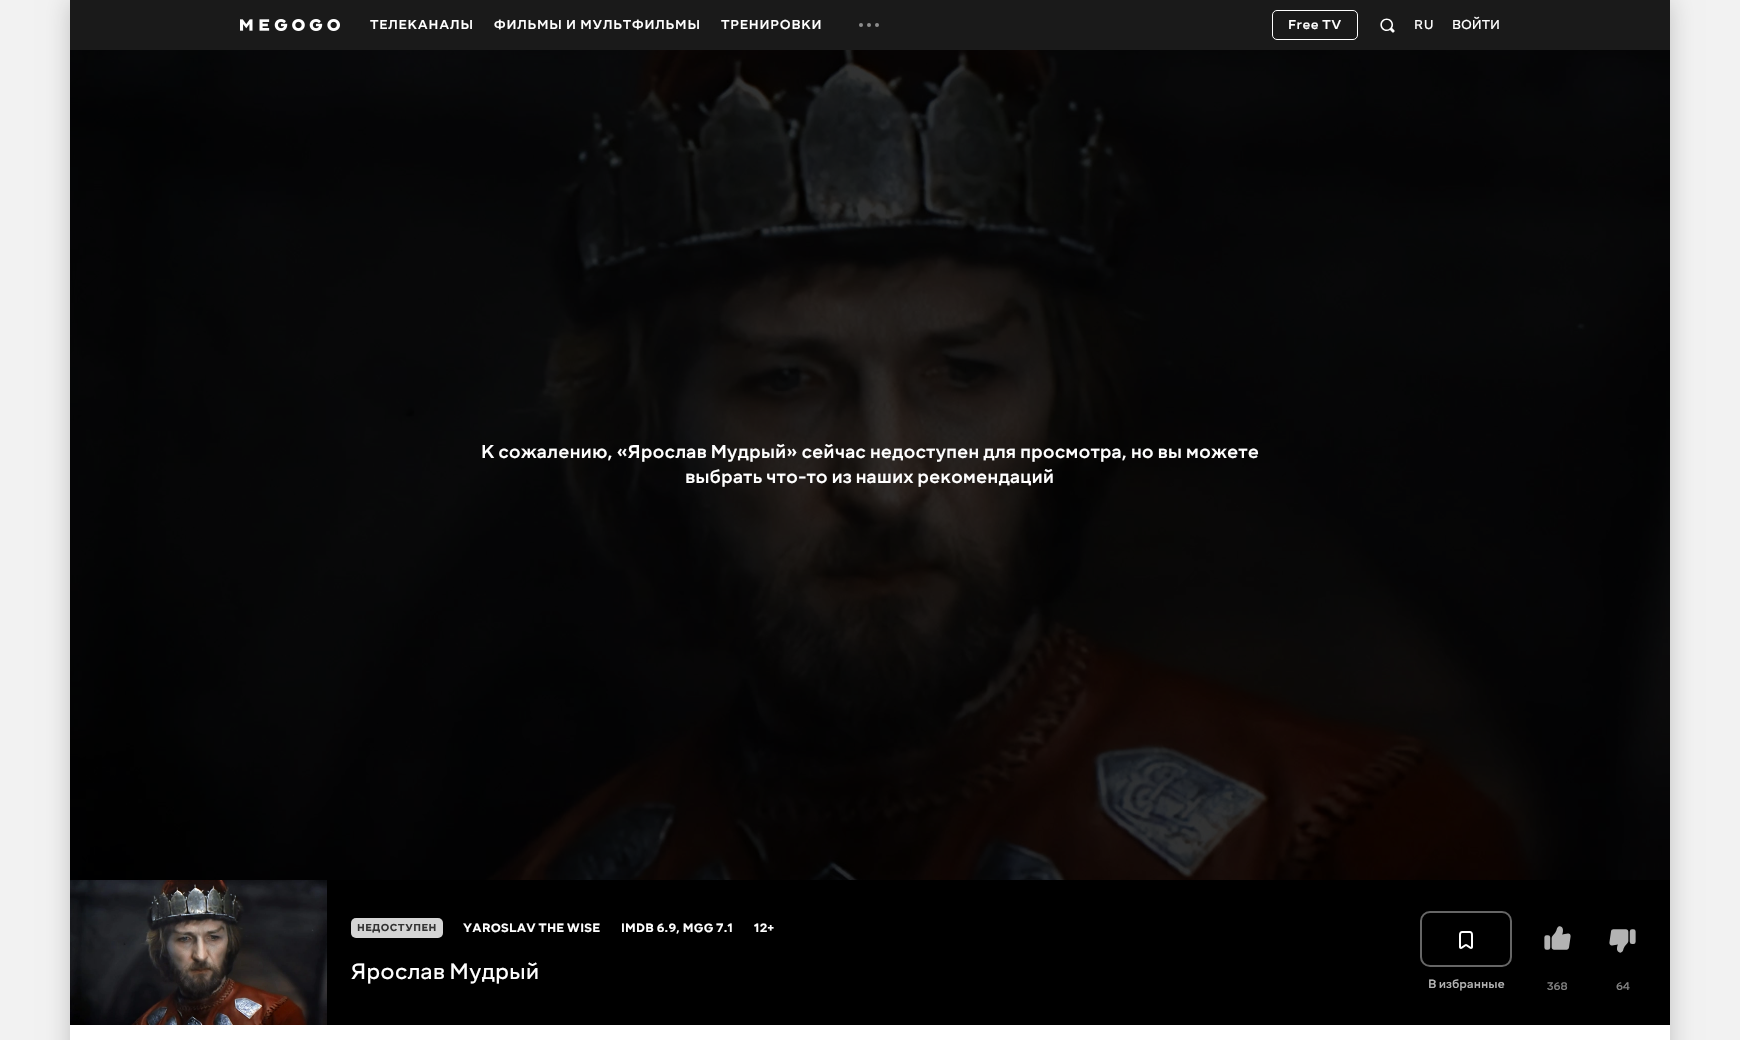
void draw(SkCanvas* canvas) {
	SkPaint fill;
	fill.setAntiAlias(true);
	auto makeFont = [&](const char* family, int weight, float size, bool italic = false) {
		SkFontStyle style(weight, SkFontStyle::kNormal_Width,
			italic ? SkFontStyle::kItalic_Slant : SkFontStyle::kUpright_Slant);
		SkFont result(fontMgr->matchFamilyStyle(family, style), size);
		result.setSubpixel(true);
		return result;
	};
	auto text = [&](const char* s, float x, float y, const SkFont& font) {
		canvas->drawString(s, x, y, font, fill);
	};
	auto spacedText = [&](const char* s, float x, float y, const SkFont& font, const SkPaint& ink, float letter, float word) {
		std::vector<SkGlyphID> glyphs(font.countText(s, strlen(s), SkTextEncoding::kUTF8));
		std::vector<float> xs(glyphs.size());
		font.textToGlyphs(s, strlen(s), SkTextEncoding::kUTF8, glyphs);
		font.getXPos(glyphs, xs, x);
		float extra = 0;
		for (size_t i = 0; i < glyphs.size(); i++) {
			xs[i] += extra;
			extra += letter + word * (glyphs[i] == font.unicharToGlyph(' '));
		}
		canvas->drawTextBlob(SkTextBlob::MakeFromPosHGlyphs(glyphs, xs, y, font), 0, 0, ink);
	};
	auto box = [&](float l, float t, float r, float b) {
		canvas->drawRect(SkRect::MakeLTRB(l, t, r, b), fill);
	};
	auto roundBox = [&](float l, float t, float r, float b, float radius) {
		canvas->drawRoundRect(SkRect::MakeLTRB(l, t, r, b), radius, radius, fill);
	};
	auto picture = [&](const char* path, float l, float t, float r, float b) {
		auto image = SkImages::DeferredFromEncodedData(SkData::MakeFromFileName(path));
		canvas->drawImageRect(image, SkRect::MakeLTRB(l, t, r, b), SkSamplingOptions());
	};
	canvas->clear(0xFFF2F2F2);
	fill.setColor(0x33000000);
	fill.setMaskFilter(SkMaskFilter::MakeBlur(kNormal_SkBlurStyle, 12));
	canvas->drawRect(SkRect::MakeLTRB(70, 0, 1670, 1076), fill);
	fill.setMaskFilter(nullptr);
	fill.setColor(0xFFFFFFFF);
	box(70, 1025, 1670, 1040);
	fill.setColor(0xFF1A1A1A);
	box(70, 0, 1670, 50);
	picture("image0.png", 240, 19, 340, 31);
	picture("image1.png", 859, 23, 879, 27);
	fill.setStyle(SkPaint::kStroke_Style);
	fill.setStrokeWidth(1);
	fill.setColor(0xFFFFFFFF);
	canvas->drawRoundRect(SkRect::MakeLTRB(1272.5f, 10.5f, 1357.5f, 39.5f), 4.5f, 4.5f, fill);
	picture("image2.png", 1380, 18, 1395, 33);
	fill.setStyle(SkPaint::kFill_Style);
	fill.setColor(0xFF000000);
	box(327, 880, 1670, 1025);
	picture("image3.png", 70, 50, 1670, 880);
	picture("image4.png", 70, 880, 327, 1025);
	fill.setColor(0xFFD5D5D5);
	roundBox(351, 918, 443, 938, 5);
	fill.setStyle(SkPaint::kStroke_Style);
	fill.setStrokeWidth(2);
	fill.setColor(0xFF666666);
	canvas->drawRoundRect(SkRect::MakeLTRB(1421, 912, 1511, 966), 9, 9, fill);
	picture("image5.png", 1459, 931, 1473, 949);
	picture("image6.png", 1544, 926, 1571, 950);
	picture("image7.png", 1609, 929, 1636, 953);
	auto font1 = makeFont("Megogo", 500, 14);
	fill.setStyle(SkPaint::kFill_Style);
	fill.setColor(0xFFFFFFFF);
	spacedText("ТЕЛЕКАНАЛЫ", 370, 29, font1, fill, 0.8f, 0);
	spacedText("ФИЛЬМЫ И МУЛЬТФИЛЬМЫ", 494, 29, font1, fill, 0.8f, 0);
	spacedText("ТРЕНИРОВКИ", 721, 29, font1, fill, 0.8f, 0);
	spacedText("Free TV", 1288, 29, font1, fill, 0.5f, 0);
	auto font2 = makeFont("Megogo", 400, 14);
	spacedText("RU", 1414, 29, font2, fill, 0.8f, 0);
	text("ВОЙТИ", 1452, 29, font2);
	auto font3 = makeFont("Megogo", 500, 20);
	text("К сожалению, «Ярослав Мудрый» сейчас недоступен для просмотра, но вы можете", 481, 458, font3);
	text("выбрать что-то из наших рекомендаций", 685, 483, font3);
	auto font4 = makeFont("Megogo", 600, 11);
	fill.setColor(0xFF333333);
	spacedText("НЕДОСТУПЕН", 357, 931, font4, fill, 0.5f, 0);
	auto font5 = makeFont("Megogo", 600, 13);
	fill.setColor(0xFFFFFFFF);
	spacedText("YAROSLAV THE WISE", 463, 932, font5, fill, 0.25f, 0);
	spacedText("IMDB 6.9, MGG 7.1", 621, 932, font5, fill, 0.25f, 0);
	spacedText("12+", 754, 932, font5, fill, 0.25f, 0);
	auto font6 = makeFont("Megogo", 400, 24);
	text("Ярослав Мудрый", 351, 979, font6);
	auto font7 = makeFont("Megogo", 500, 13);
	fill.setColor(0xFFB3B3B3);
	text("В избранные", 1428, 988, font7);
	auto font8 = makeFont("Megogo", 500, 12);
	fill.setColor(0xFF808080);
	text("368", 1547, 990, font8);
	text("64", 1616, 990, font8);
}
